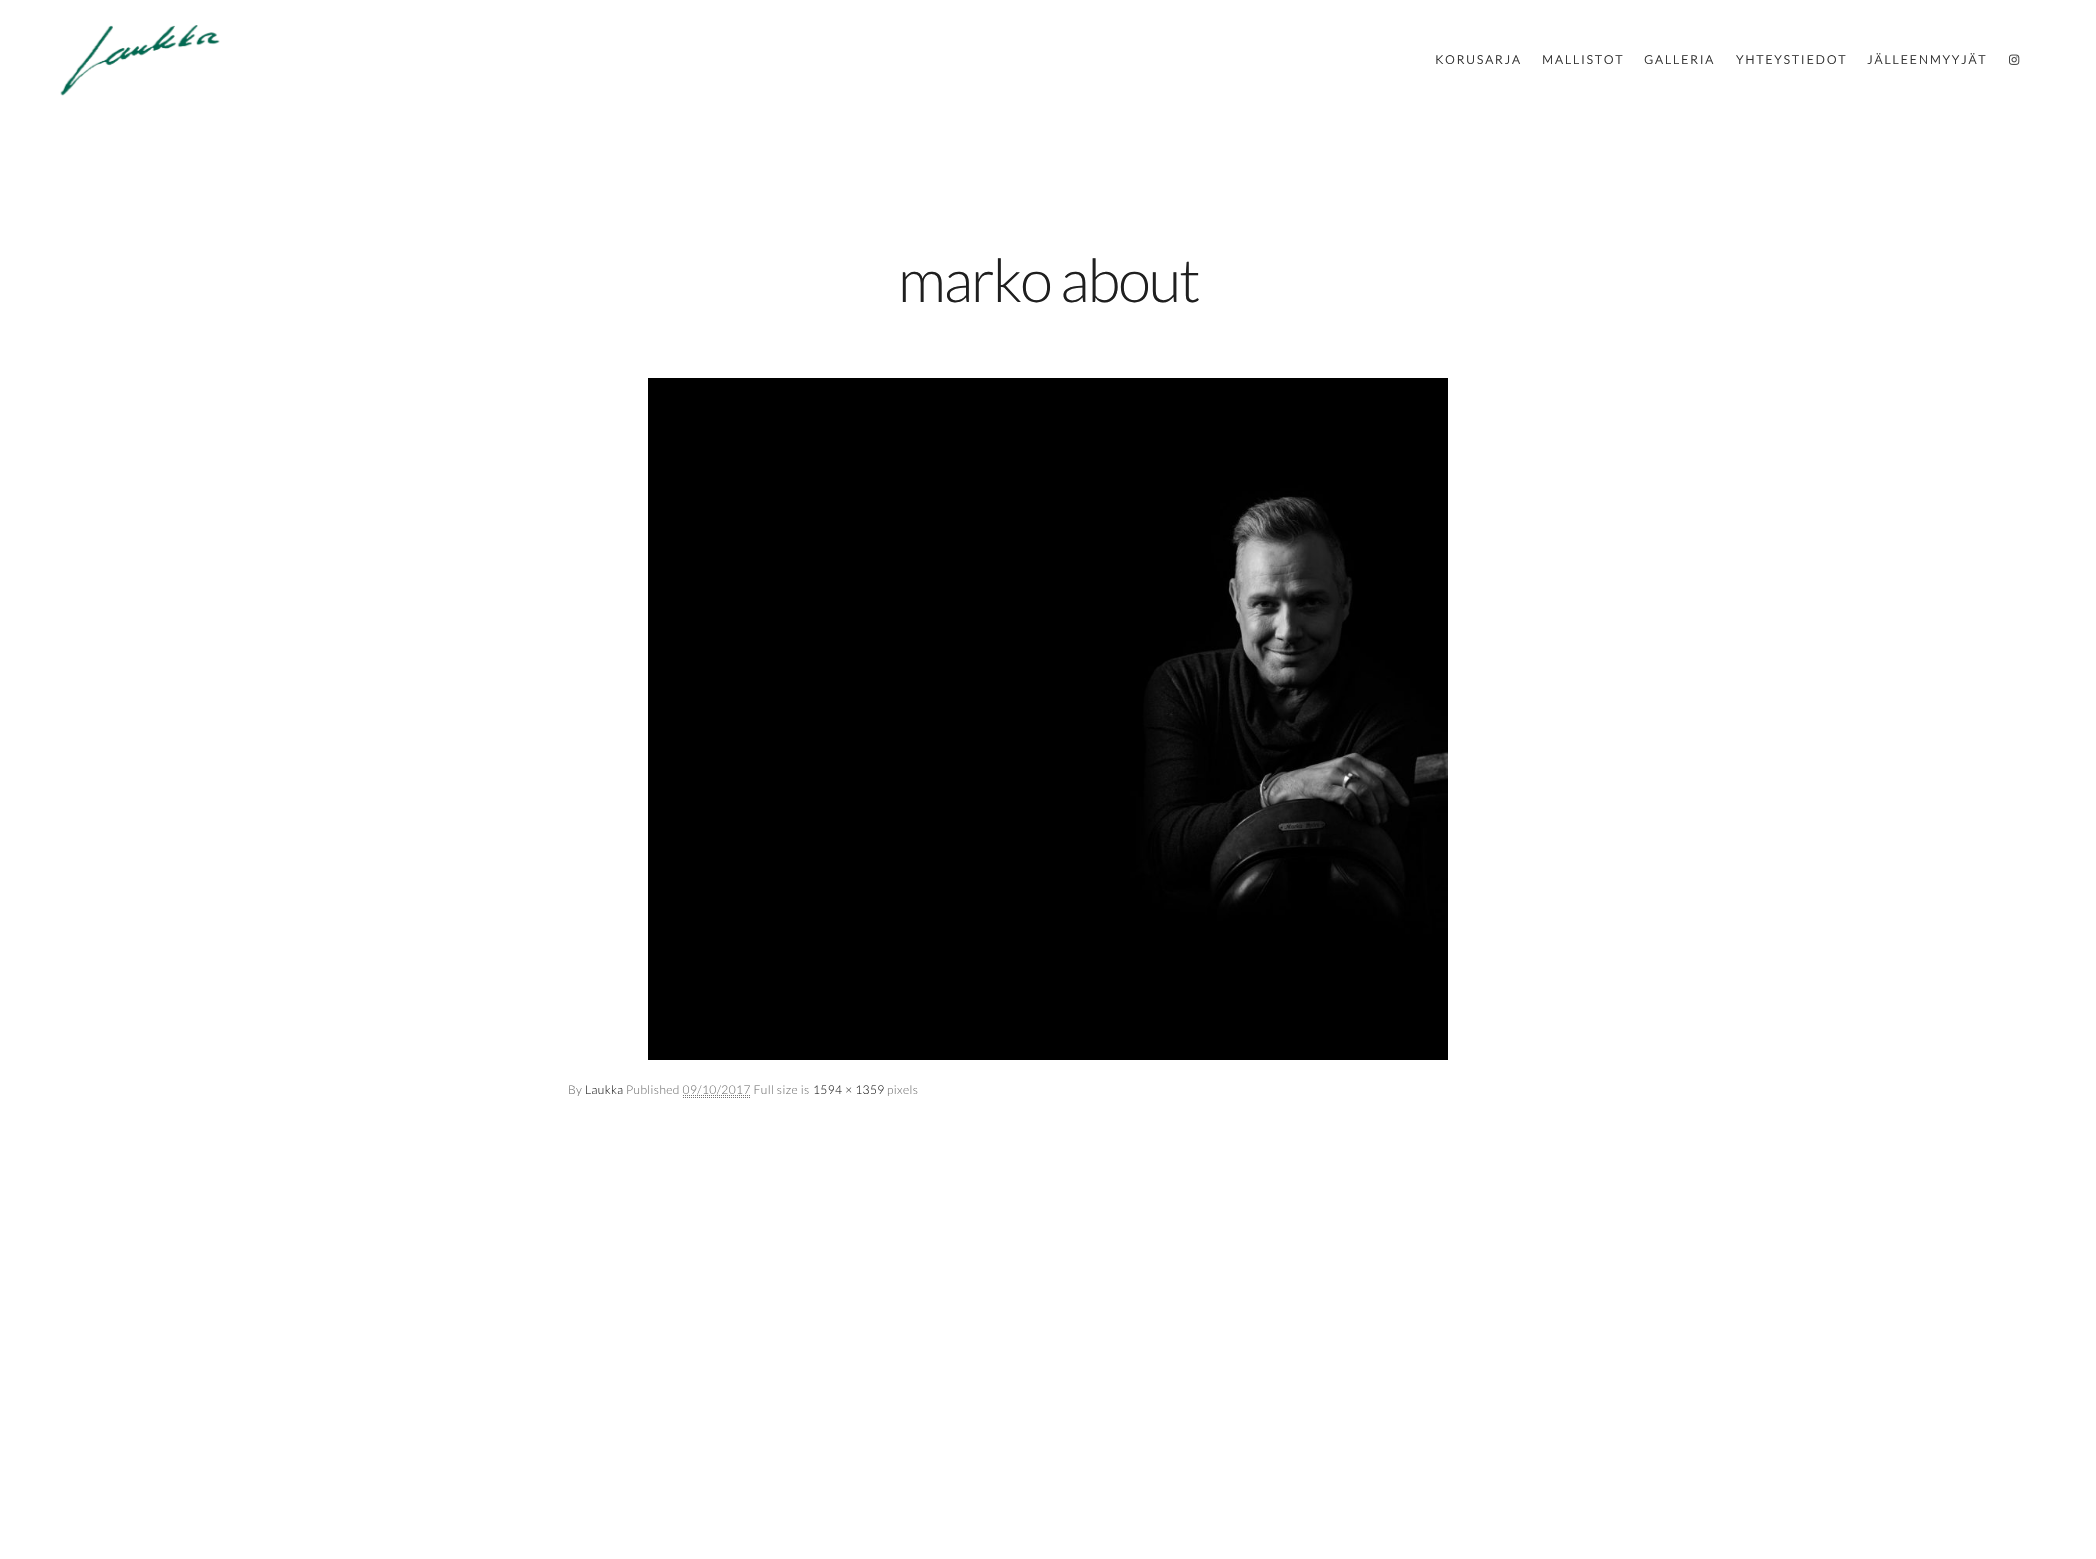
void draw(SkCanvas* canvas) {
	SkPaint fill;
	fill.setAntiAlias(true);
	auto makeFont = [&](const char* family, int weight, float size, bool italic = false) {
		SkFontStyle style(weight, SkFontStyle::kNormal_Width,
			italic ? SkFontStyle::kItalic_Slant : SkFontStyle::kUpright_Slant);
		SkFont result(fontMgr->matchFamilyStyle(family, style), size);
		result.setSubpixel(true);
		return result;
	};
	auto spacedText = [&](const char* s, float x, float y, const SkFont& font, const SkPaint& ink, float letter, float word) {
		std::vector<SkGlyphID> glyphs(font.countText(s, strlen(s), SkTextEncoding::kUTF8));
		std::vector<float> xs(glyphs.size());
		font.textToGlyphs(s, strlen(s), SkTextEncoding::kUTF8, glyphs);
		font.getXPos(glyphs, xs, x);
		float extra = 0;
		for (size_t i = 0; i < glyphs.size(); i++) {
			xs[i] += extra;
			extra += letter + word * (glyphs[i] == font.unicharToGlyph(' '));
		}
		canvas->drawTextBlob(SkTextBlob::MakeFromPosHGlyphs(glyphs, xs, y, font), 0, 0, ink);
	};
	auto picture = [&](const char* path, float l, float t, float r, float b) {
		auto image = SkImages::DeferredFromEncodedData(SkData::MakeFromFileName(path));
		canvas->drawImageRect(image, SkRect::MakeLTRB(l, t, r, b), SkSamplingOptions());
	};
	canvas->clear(0xFFFFFFFF);
	picture("image0.png", 60, 25, 220, 96);
	picture("image1.png", 2009, 54, 2020, 65);
	picture("image2.png", 648, 378, 1448, 1060);
	fill.setStyle(SkPaint::kStroke_Style);
	fill.setStrokeWidth(1);
	fill.setColor(0xFF737373);
	fill.setPathEffect(SkDashPathEffect::Make({{1, 1}}, 0));
	canvas->drawPath(SkPathBuilder().moveTo(683, 1097.5f).lineTo(751, 1097.5f).detach(), fill);
	fill.setPathEffect(nullptr);
	fill.setPathEffect(SkDashPathEffect::Make({{1, 1}}, 0));
	canvas->drawPath(SkPathBuilder().moveTo(683, 1095.5f).lineTo(751, 1095.5f).detach(), fill);
	fill.setPathEffect(nullptr);
	auto font1 = makeFont("Lato", 700, 12);
	fill.setStyle(SkPaint::kFill_Style);
	fill.setColor(0xFF333333);
	spacedText("KORUSARJA", 1435, 64, font1, fill, 2, 0);
	spacedText("MALLISTOT", 1542, 64, font1, fill, 2, 0);
	spacedText("GALLERIA", 1644, 64, font1, fill, 2, 0);
	spacedText("YHTEYSTIEDOT", 1736, 64, font1, fill, 2, 0);
	spacedText("JÄLLEENMYYJÄT", 1867, 64, font1, fill, 2, 0);
	auto font2 = makeFont("Lato", 300, 60);
	fill.setColor(0xFF1F1F1F);
	spacedText("marko about", 898, 302, font2, fill, -2, 0);
	auto font3 = makeFont("Lato", 300, 12);
	fill.setColor(0xFF737373);
	spacedText("By", 568, 1094, font3, fill, 0.4f, 0);
	fill.setColor(0xFF1F1F1F);
	spacedText("Laukka", 585, 1094, font3, fill, 0.4f, 0);
	fill.setColor(0xFF737373);
	spacedText("Published 09/10/2017 Full size is", 626, 1094, font3, fill, 0.4f, 0);
	fill.setColor(0xFF1F1F1F);
	spacedText("1594 × 1359", 813, 1094, font3, fill, 0.4f, 0);
	fill.setColor(0xFF737373);
	spacedText("pixels", 887, 1094, font3, fill, 0.4f, 0);
}
